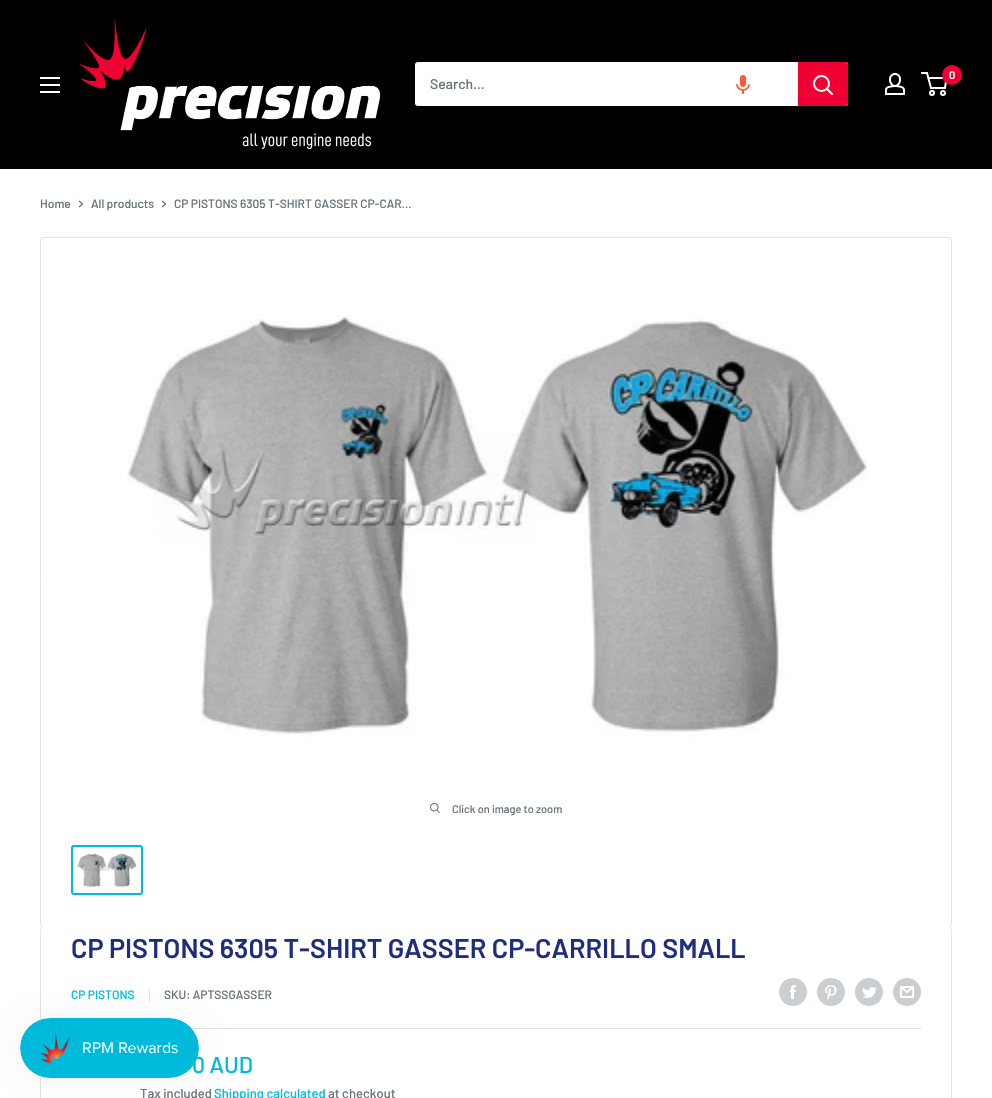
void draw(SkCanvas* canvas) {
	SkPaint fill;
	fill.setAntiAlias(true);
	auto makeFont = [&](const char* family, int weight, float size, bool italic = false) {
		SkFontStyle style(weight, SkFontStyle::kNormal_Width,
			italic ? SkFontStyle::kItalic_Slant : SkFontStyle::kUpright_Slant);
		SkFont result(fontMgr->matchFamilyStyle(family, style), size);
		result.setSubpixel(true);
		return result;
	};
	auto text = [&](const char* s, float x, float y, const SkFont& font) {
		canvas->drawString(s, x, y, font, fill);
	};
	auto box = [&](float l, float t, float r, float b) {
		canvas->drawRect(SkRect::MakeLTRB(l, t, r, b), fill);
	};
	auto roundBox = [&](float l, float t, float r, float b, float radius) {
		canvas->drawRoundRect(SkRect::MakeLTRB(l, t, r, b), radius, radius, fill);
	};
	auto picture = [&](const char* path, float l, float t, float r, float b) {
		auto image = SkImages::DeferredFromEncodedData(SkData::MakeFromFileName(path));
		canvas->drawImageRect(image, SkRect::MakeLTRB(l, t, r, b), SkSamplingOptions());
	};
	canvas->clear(0xFFFFFFFF);
	fill.setColor(0xFF000000);
	box(0, 0, 992, 169);
	picture("image0.png", 80, 20, 380, 149);
	picture("image1.png", 885, 73, 905, 95);
	fill.setStyle(SkPaint::kStroke_Style);
	fill.setStrokeWidth(2);
	fill.setColor(0xFFFFFFFF);
	canvas->drawCircle(932, 93, 2, fill);
	canvas->drawCircle(943, 93, 2, fill);
	canvas->drawPath(SkPathBuilder().moveTo(928.5f, 78).lineTo(946.5f, 78).lineTo(945, 88).lineTo(931, 88).lineTo(927, 73).lineTo(921, 73).detach(), fill);
	fill.setStyle(SkPaint::kFill_Style);
	fill.setColor(0xFFF00032);
	canvas->drawCircle(952, 75, 10, fill);
	picture("image2.png", 40, 77, 60, 93);
	fill.setColor(0xFFFFFFFF);
	roundBox(415, 62, 848, 106, 3);
	picture("image3.png", 736, 75, 750, 94);
	fill.setColor(0xFFF00032);
	canvas->drawPath(SkPathBuilder().moveTo(798, 62).lineTo(845, 62).cubicTo(846.5f, 62, 848, 63.5f, 848, 65).lineTo(848, 103).cubicTo(848, 104.5f, 846.5f, 106, 845, 106).lineTo(798, 106).close().detach(), fill);
	fill.setStyle(SkPaint::kStroke_Style);
	fill.setStrokeCap(SkPaint::kSquare_Cap);
	fill.setColor(0xFFFFFFFF);
	canvas->drawPath(SkPathBuilder().moveTo(832, 94).lineTo(827, 89).detach(), fill);
	fill.setStrokeCap(SkPaint::kButt_Cap);
	canvas->drawCircle(821.5f, 83.5f, 7.5f, fill);
	fill.setStrokeWidth(1.3f);
	fill.setStrokeCap(SkPaint::kSquare_Cap);
	fill.setColor(0xFF677279);
	canvas->drawPath(SkPathBuilder().moveTo(79.5f, 201.5f).lineTo(82.5f, 204).lineTo(79.5f, 206.5f).detach(), fill);
	canvas->drawPath(SkPathBuilder().moveTo(162.5f, 201.5f).lineTo(165.5f, 204).lineTo(162.5f, 206.5f).detach(), fill);
	fill.setStrokeWidth(1);
	fill.setStrokeCap(SkPaint::kButt_Cap);
	fill.setColor(0xFFE1E3E4);
	canvas->drawRoundRect(SkRect::MakeLTRB(40.5f, 237.5f, 951.5f, 927.5f), 2.5f, 2.5f, fill);
	picture("image4.png", 127, 314, 868, 737);
	picture("image5.png", 430, 803, 440, 813);
	fill.setStrokeWidth(2);
	fill.setColor(0xFF00BADB);
	canvas->drawRoundRect(SkRect::MakeLTRB(72, 846, 142, 894), 2, 2, fill);
	picture("image6.png", 77, 853, 137, 888);
	fill.setStyle(SkPaint::kFill_Style);
	fill.setColor(0xFFFFFFFF);
	canvas->drawPath(SkPathBuilder().moveTo(43, 927).cubicTo(41, 927, 40, 929, 40, 931).cubicTo(40, 929, 41, 928, 43, 928).lineTo(949, 928).cubicTo(951, 928, 952, 929, 952, 931).cubicTo(952, 929, 951, 927, 949, 927).close().detach(), fill);
	fill.setColor(0xFFE1E3E4);
	canvas->drawPath(SkPathBuilder(SkPathFillType::kEvenOdd).moveTo(43, 928).lineTo(949, 928).cubicTo(951, 928, 952, 929, 952, 931).lineTo(952, 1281).cubicTo(952, 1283, 951, 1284, 949, 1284).lineTo(43, 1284).cubicTo(41, 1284, 40, 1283, 40, 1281).lineTo(40, 931).cubicTo(40, 929, 41, 928, 43, 928).close().moveTo(43, 928).lineTo(949, 928).cubicTo(950, 928, 951, 929, 951, 931).lineTo(951, 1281).cubicTo(951, 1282, 950, 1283, 949, 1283).lineTo(43, 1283).cubicTo(42, 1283, 41, 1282, 41, 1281).lineTo(41, 931).cubicTo(41, 929, 42, 928, 43, 928).close().detach(), fill);
	box(149, 989, 150, 1002);
	picture("image7.png", 779, 978, 807, 1006);
	picture("image8.png", 817, 978, 845, 1006);
	picture("image9.png", 855, 978, 883, 1006);
	picture("image10.png", 893, 978, 921, 1006);
	box(191, 1028, 921, 1029);
	fill.setColor(0x0D000000);
	fill.setMaskFilter(SkMaskFilter::MakeBlur(kNormal_SkBlurStyle, 12.5f));
	canvas->drawRoundRect(SkRect::MakeLTRB(20, 1018, 199, 1078), 30, 30, fill);
	fill.setMaskFilter(nullptr);
	auto font1 = makeFont("Barlow", 600, 11);
	fill.setColor(0xFFFFFFFF);
	text("0", 949, 79, font1);
	auto font2 = makeFont("Barlow", 500, 14);
	fill.setColor(0xFF677279);
	text("Search...", 430, 89, font2);
	auto font3 = makeFont("Barlow", 500, 12);
	text("Home", 40, 208, font3);
	text("All products", 91, 208, font3);
	text("CP PISTONS 6305 T-SHIRT GASSER CP-CAR...", 174, 208, font3);
	auto font4 = makeFont("Barlow", 500, 11);
	text("Click on image to zoom", 452, 813, font4);
	auto font5 = makeFont("Barlow", 600, 27);
	fill.setColor(0xFF1E2D7D);
	text("CP PISTONS 6305 T-SHIRT GASSER CP-CARRILLO SMALL", 71, 958, font5);
	fill.setColor(0xFF00BADB);
	text("CP PISTONS", 71, 999, font3);
	fill.setColor(0xFF677279);
	text("SKU: APTSSGASSER", 164, 999, font3);
	auto font6 = makeFont("Barlow", 500, 23);
	fill.setColor(0xFF00BADB);
	text("0 AUD", 192, 1073, font6);
	auto font7 = makeFont("Barlow", 500, 13);
	fill.setColor(0xFF677279);
	text("Tax included", 140, 1098, font7);
	fill.setColor(0xFF00BADB);
	text("Shipping calculated", 214, 1098, font7);
	fill.setColor(0xFF677279);
	text("at checkout", 328, 1098, font7);
	picture("image11.png", 20, 1018, 199, 1078);
}
